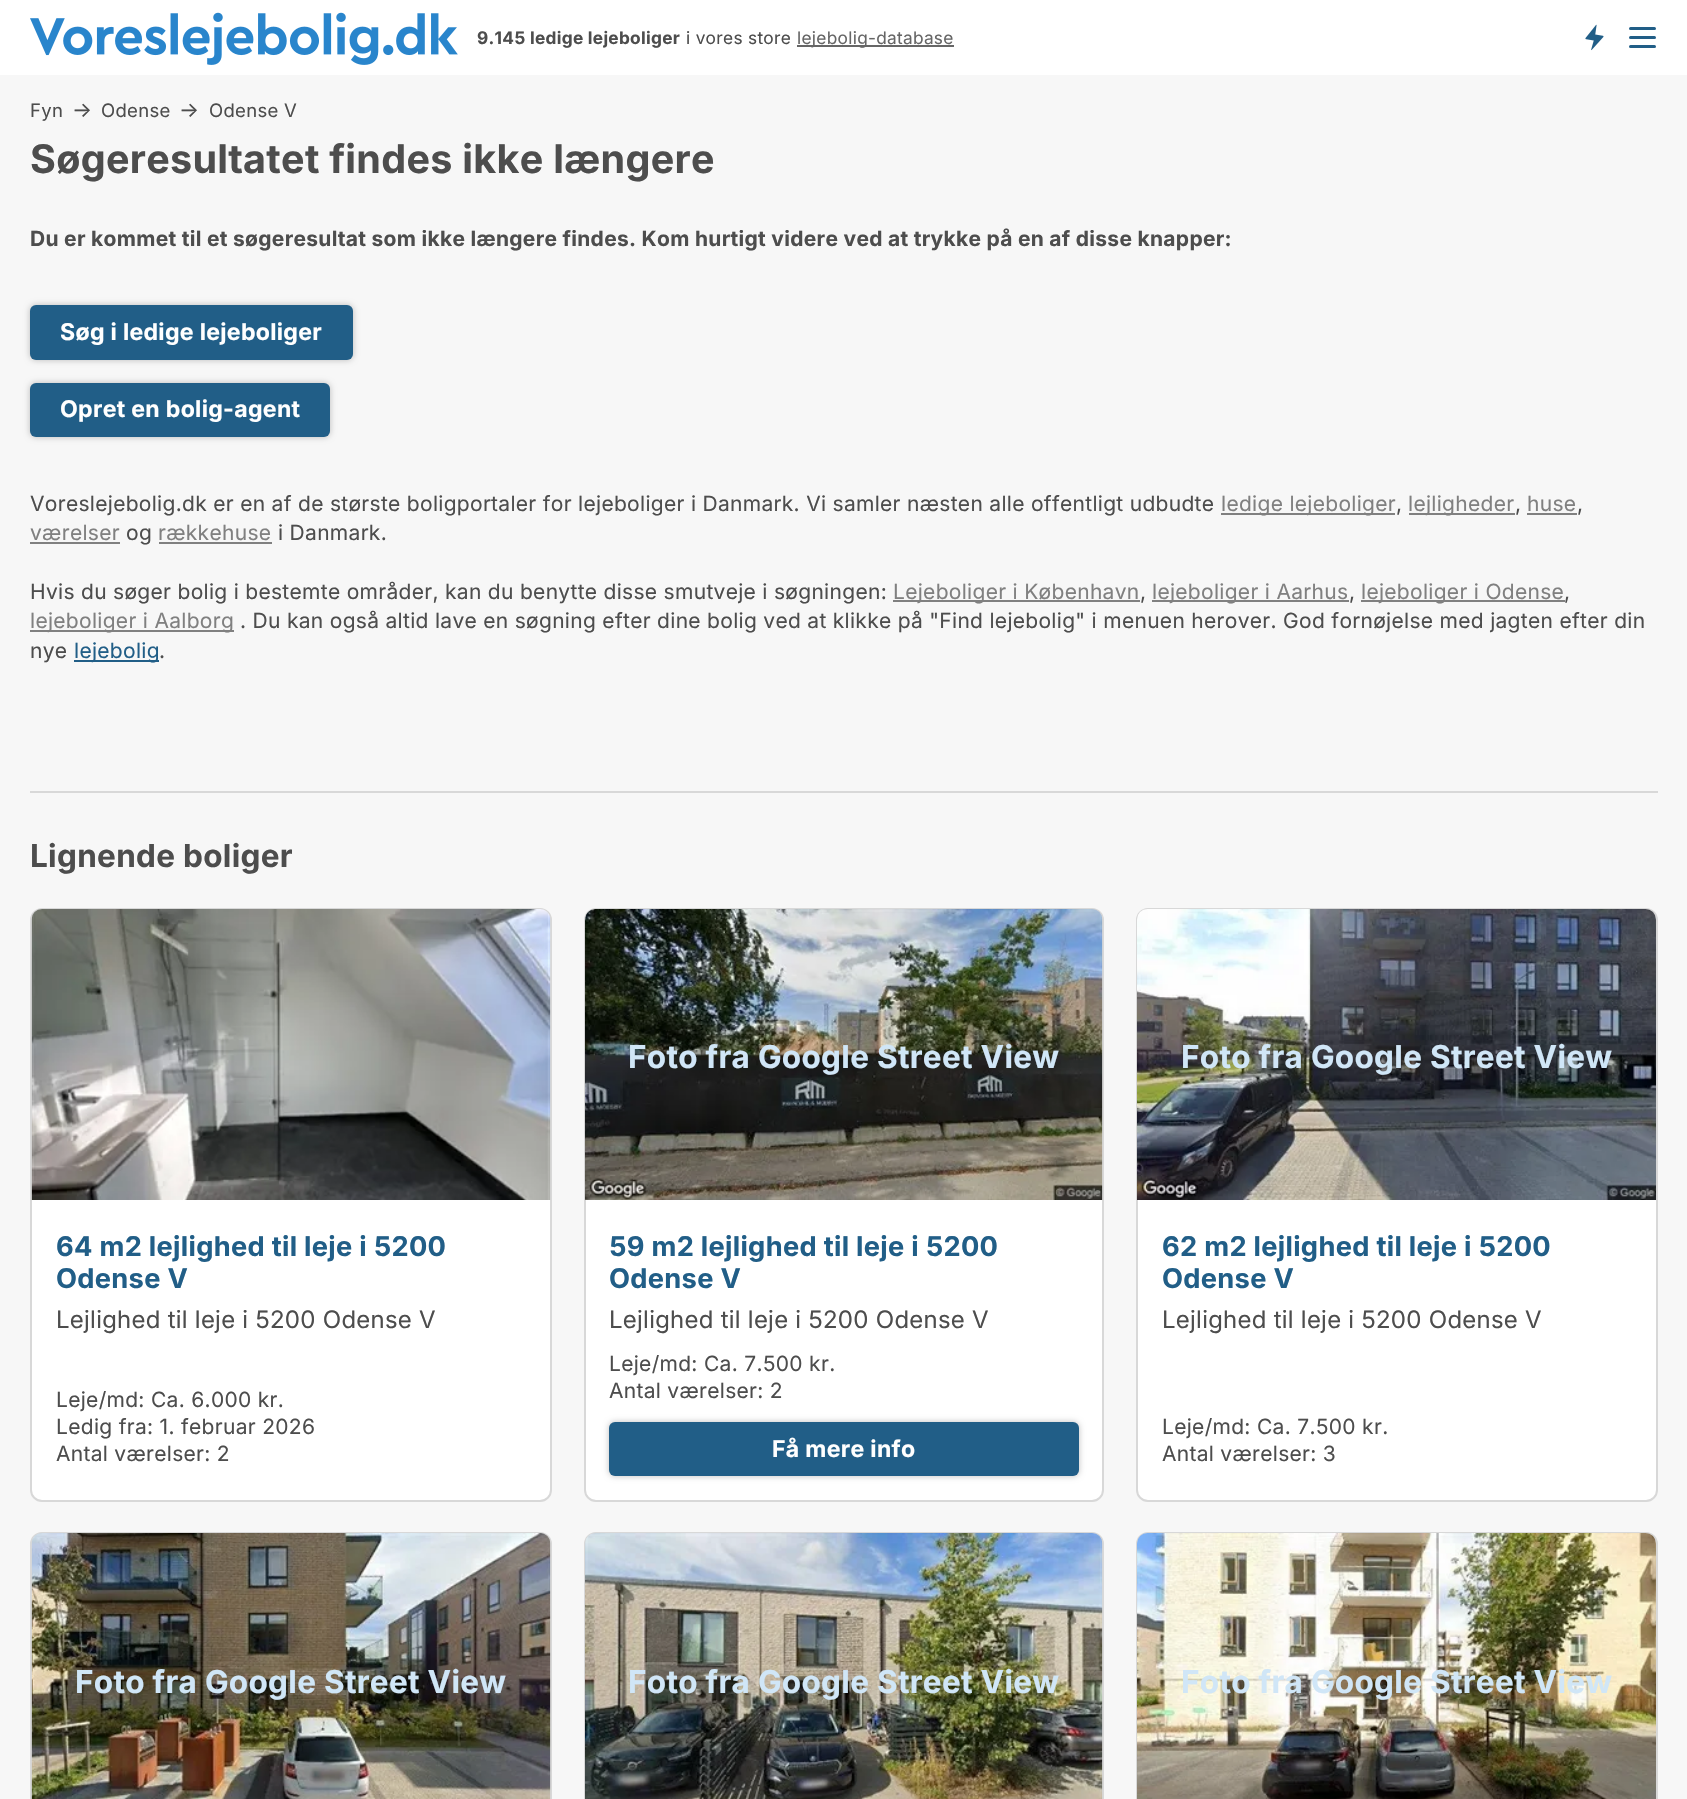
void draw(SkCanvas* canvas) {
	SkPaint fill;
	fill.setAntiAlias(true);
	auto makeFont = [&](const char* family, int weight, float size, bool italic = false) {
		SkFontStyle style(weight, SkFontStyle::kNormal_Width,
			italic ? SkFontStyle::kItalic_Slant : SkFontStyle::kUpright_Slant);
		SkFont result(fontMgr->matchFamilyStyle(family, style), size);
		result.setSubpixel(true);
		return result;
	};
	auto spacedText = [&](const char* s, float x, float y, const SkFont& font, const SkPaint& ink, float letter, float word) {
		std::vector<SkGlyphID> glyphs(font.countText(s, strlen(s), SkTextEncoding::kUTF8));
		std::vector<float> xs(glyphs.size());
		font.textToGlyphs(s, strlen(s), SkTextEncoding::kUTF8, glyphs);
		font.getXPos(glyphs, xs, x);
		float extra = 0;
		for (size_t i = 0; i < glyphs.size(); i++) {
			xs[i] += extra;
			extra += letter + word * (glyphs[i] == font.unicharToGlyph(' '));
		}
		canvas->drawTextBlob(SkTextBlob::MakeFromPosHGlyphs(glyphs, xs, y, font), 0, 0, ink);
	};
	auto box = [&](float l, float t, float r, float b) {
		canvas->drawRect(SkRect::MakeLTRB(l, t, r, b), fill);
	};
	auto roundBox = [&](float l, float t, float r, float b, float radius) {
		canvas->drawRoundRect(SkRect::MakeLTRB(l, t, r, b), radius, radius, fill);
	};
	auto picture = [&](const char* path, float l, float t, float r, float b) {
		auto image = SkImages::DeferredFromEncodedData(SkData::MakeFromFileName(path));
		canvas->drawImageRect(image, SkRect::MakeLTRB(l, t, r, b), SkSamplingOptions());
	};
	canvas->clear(0xFFFFFFFF);
	picture("image0.png", 30, 12, 458, 65);
	fill.setColor(0xFF666666);
	box(797, 45, 954, 47);
	picture("image1.png", 1585, 24, 1604, 51);
	fill.setColor(0xFF215E87);
	roundBox(1629, 27, 1656, 30, 1.5f);
	roundBox(1629, 36, 1656, 39, 1.5f);
	roundBox(1629, 45, 1656, 48, 1.5f);
	fill.setColor(0xFFF7F7F7);
	box(0, 75, 1687, 1799);
	fill.setColor(0x40000000);
	fill.setMaskFilter(SkMaskFilter::MakeBlur(kNormal_SkBlurStyle, 3));
	canvas->drawRoundRect(SkRect::MakeLTRB(30, 305, 353, 360), 6, 6, fill);
	fill.setMaskFilter(nullptr);
	fill.setColor(0xFF215E87);
	roundBox(30, 305, 353, 360, 6);
	fill.setColor(0x40000000);
	fill.setMaskFilter(SkMaskFilter::MakeBlur(kNormal_SkBlurStyle, 3));
	canvas->drawRoundRect(SkRect::MakeLTRB(30, 383, 330, 437), 6, 6, fill);
	fill.setMaskFilter(nullptr);
	fill.setColor(0xFF215E87);
	roundBox(30, 383, 330, 437, 6);
	fill.setColor(0xFF808080);
	box(1221, 513, 1395, 515);
	box(1409, 513, 1515, 515);
	box(1527, 513, 1577, 515);
	box(30, 542, 120, 544);
	box(159, 542, 272, 544);
	box(893, 600, 1140, 602);
	box(1152, 600, 1349, 602);
	box(1361, 600, 1565, 602);
	box(30, 630, 234, 632);
	fill.setColor(0xFF215E87);
	box(74, 660, 159, 662);
	fill.setColor(0xFFD8D8D8);
	box(30, 791, 1658, 793);
	fill.setColor(0xFFFFFFFF);
	canvas->drawRoundRect(SkRect::MakeLTRB(31, 909, 551, 1501), 11, 11, fill);
	fill.setStyle(SkPaint::kStroke_Style);
	fill.setStrokeWidth(2);
	fill.setColor(0xFFD8D8D8);
	canvas->drawRoundRect(SkRect::MakeLTRB(31, 909, 551, 1501), 11, 11, fill);
	picture("image2.png", 31, 909, 551, 1200);
	fill.setStyle(SkPaint::kFill_Style);
	fill.setColor(0xFFFFFFFF);
	canvas->drawRoundRect(SkRect::MakeLTRB(585, 909, 1103, 1501), 11, 11, fill);
	fill.setStyle(SkPaint::kStroke_Style);
	fill.setColor(0xFFD8D8D8);
	canvas->drawRoundRect(SkRect::MakeLTRB(585, 909, 1103, 1501), 11, 11, fill);
	picture("image3.png", 585, 909, 1103, 1200);
	fill.setStyle(SkPaint::kFill_Style);
	fill.setColor(0x40000000);
	fill.setMaskFilter(SkMaskFilter::MakeBlur(kNormal_SkBlurStyle, 3));
	canvas->drawRoundRect(SkRect::MakeLTRB(609, 1422, 1079, 1476), 6, 6, fill);
	fill.setMaskFilter(nullptr);
	fill.setColor(0xFF215E87);
	roundBox(609, 1422, 1079, 1476, 6);
	fill.setColor(0xFFFFFFFF);
	canvas->drawRoundRect(SkRect::MakeLTRB(1137, 909, 1657, 1501), 11, 11, fill);
	fill.setStyle(SkPaint::kStroke_Style);
	fill.setColor(0xFFD8D8D8);
	canvas->drawRoundRect(SkRect::MakeLTRB(1137, 909, 1657, 1501), 11, 11, fill);
	picture("image4.png", 1137, 909, 1656, 1200);
	canvas->drawRoundRect(SkRect::MakeLTRB(31, 1533, 551, 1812), 11, 11, fill);
	picture("image5.png", 31, 1533, 551, 1799);
	canvas->drawRoundRect(SkRect::MakeLTRB(585, 1533, 1103, 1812), 11, 11, fill);
	picture("image6.png", 585, 1533, 1103, 1799);
	fill.setStyle(SkPaint::kFill_Style);
	fill.setColor(0xFFFFFFFF);
	canvas->drawRoundRect(SkRect::MakeLTRB(1137, 1533, 1657, 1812), 11, 11, fill);
	fill.setStyle(SkPaint::kStroke_Style);
	fill.setColor(0xFFD8D8D8);
	canvas->drawRoundRect(SkRect::MakeLTRB(1137, 1533, 1657, 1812), 11, 11, fill);
	picture("image7.png", 1137, 1533, 1656, 1799);
	auto font1 = makeFont("Inter", 700, 17.25f);
	fill.setStyle(SkPaint::kFill_Style);
	fill.setColor(0xFF4D4D4D);
	spacedText("9.145 ledige lejeboliger", 477, 44, font1, fill, 0.3f, 0);
	auto font2 = makeFont("Inter", 400, 17.25f);
	spacedText("i vores store", 686, 44, font2, fill, 0.3f, 0);
	fill.setColor(0xFF666666);
	spacedText("lejebolig-database", 797, 44, font2, fill, 0.3f, 0);
	auto font3 = makeFont("Inter", 400, 18.5f);
	fill.setColor(0xFF4D4D4D);
	spacedText("Fyn", 30, 117, font3, fill, 0.3f, 0);
	auto font4 = makeFont("Inter", 400, 21);
	spacedText("→", 72, 117, font4, fill, 0.3f, 0);
	spacedText("Odense", 101, 117, font3, fill, 0.3f, 0);
	spacedText("→", 179, 117, font4, fill, 0.3f, 0);
	spacedText("Odense V", 209, 117, font3, fill, 0.3f, 0);
	auto font5 = makeFont("Inter", 700, 39.5f);
	spacedText("Søgeresultatet findes ikke længere", 30, 173, font5, fill, 0.3f, 0);
	auto font6 = makeFont("Inter", 700, 21);
	spacedText("Du er kommet til et søgeresultat som ikke længere findes. Kom hurtigt videre ved at trykke på en af disse knapper:", 30, 246, font6, fill, 0.3f, 0);
	auto font7 = makeFont("Inter", 700, 23.1f);
	fill.setColor(0xFFFFFFFF);
	spacedText("Søg i ledige lejeboliger", 60, 340, font7, fill, 0.3f, 0);
	spacedText("Opret en bolig-agent", 60, 417, font7, fill, 0.3f, 0);
	fill.setColor(0xFF4D4D4D);
	spacedText("Voreslejebolig.dk er en af de største boligportaler for lejeboliger i Danmark. Vi samler næsten alle offentligt udbudte", 30, 511, font4, fill, 0.3f, 0);
	fill.setColor(0xFF808080);
	spacedText("ledige lejeboliger", 1221, 511, font4, fill, 0.3f, 0);
	fill.setColor(0xFF4D4D4D);
	spacedText(",", 1396, 511, font4, fill, 0.3f, 0);
	fill.setColor(0xFF808080);
	spacedText("lejligheder", 1408, 511, font4, fill, 0.3f, 0);
	fill.setColor(0xFF4D4D4D);
	spacedText(",", 1515, 511, font4, fill, 0.3f, 0);
	fill.setColor(0xFF808080);
	spacedText("huse", 1527, 511, font4, fill, 0.3f, 0);
	fill.setColor(0xFF4D4D4D);
	spacedText(",", 1577, 511, font4, fill, 0.3f, 0);
	fill.setColor(0xFF808080);
	spacedText("værelser", 30, 540, font4, fill, 0.3f, 0);
	fill.setColor(0xFF4D4D4D);
	spacedText("og", 126, 540, font4, fill, 0.3f, 0);
	fill.setColor(0xFF808080);
	spacedText("rækkehuse", 158, 540, font4, fill, 0.3f, 0);
	fill.setColor(0xFF4D4D4D);
	spacedText("i Danmark.", 278, 540, font4, fill, 0.3f, 0);
	spacedText("Hvis du søger bolig i bestemte områder, kan du benytte disse smutveje i søgningen:", 30, 599, font4, fill, 0.3f, 0);
	fill.setColor(0xFF808080);
	spacedText("Lejeboliger i København", 893, 599, font4, fill, 0.3f, 0);
	fill.setColor(0xFF4D4D4D);
	spacedText(",", 1140, 599, font4, fill, 0.3f, 0);
	fill.setColor(0xFF808080);
	spacedText("lejeboliger i Aarhus", 1152, 599, font4, fill, 0.3f, 0);
	fill.setColor(0xFF4D4D4D);
	spacedText(",", 1349, 599, font4, fill, 0.3f, 0);
	fill.setColor(0xFF808080);
	spacedText("lejeboliger i Odense", 1361, 599, font4, fill, 0.3f, 0);
	fill.setColor(0xFF4D4D4D);
	spacedText(",", 1564, 599, font4, fill, 0.3f, 0);
	fill.setColor(0xFF808080);
	spacedText("lejeboliger i Aalborg", 30, 628, font4, fill, 0.3f, 0);
	fill.setColor(0xFF4D4D4D);
	spacedText(". Du kan også altid lave en søgning efter dine bolig ved at klikke på \"Find lejebolig\" i menuen herover. God fornøjelse med jagten efter din", 240, 628, font4, fill, 0.3f, 0);
	spacedText("nye", 30, 658, font4, fill, 0.3f, 0);
	fill.setColor(0xFF215E87);
	spacedText("lejebolig", 74, 658, font4, fill, 0.3f, 0);
	fill.setColor(0xFF4D4D4D);
	spacedText(".", 159, 658, font4, fill, 0.3f, 0);
	auto font8 = makeFont("Inter", 700, 31.5f);
	spacedText("Lignende boliger", 30, 867, font8, fill, 0.3f, 0);
	auto font9 = makeFont("Inter", 700, 27.25f);
	fill.setColor(0xFF215E87);
	spacedText("64 m2 lejlighed til leje i 5200", 56, 1256, font9, fill, 0.3f, 0);
	spacedText("Odense V", 56, 1288, font9, fill, 0.3f, 0);
	auto font10 = makeFont("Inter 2", 400, 24.1f);
	fill.setColor(0xFF4D4D4D);
	spacedText("Lejlighed til leje i 5200 Odense V", 56, 1328, font10, fill, 0.3f, 0);
	spacedText("Leje/md: Ca. 6.000 kr.", 56, 1407, font4, fill, 0.3f, 0);
	spacedText("Ledig fra: 1. februar 2026", 56, 1434, font4, fill, 0.3f, 0);
	spacedText("Antal værelser: 2", 56, 1461, font4, fill, 0.3f, 0);
	fill.setColor(0xFFD0E6F7);
	spacedText("Foto fra Google Street View", 628, 1068, font8, fill, 0.3f, 0);
	fill.setColor(0xFF215E87);
	spacedText("59 m2 lejlighed til leje i 5200", 609, 1256, font9, fill, 0.3f, 0);
	spacedText("Odense V", 609, 1288, font9, fill, 0.3f, 0);
	fill.setColor(0xFF4D4D4D);
	spacedText("Lejlighed til leje i 5200 Odense V", 609, 1328, font10, fill, 0.3f, 0);
	spacedText("Leje/md: Ca. 7.500 kr.", 609, 1371, font4, fill, 0.3f, 0);
	spacedText("Antal værelser: 2", 609, 1398, font4, fill, 0.3f, 0);
	fill.setColor(0xFFFFFFFF);
	spacedText("Få mere info", 772, 1457, font7, fill, 0.3f, 0);
	fill.setColor(0xFFD0E6F7);
	spacedText("Foto fra Google Street View", 1181, 1068, font8, fill, 0.3f, 0);
	fill.setColor(0xFF215E87);
	spacedText("62 m2 lejlighed til leje i 5200", 1162, 1256, font9, fill, 0.3f, 0);
	spacedText("Odense V", 1162, 1288, font9, fill, 0.3f, 0);
	fill.setColor(0xFF4D4D4D);
	spacedText("Lejlighed til leje i 5200 Odense V", 1162, 1328, font10, fill, 0.3f, 0);
	spacedText("Leje/md: Ca. 7.500 kr.", 1162, 1434, font4, fill, 0.3f, 0);
	spacedText("Antal værelser: 3", 1162, 1461, font4, fill, 0.3f, 0);
	fill.setColor(0xFFD0E6F7);
	spacedText("Foto fra Google Street View", 75, 1693, font8, fill, 0.3f, 0);
	spacedText("Foto fra Google Street View", 628, 1693, font8, fill, 0.3f, 0);
	spacedText("Foto fra Google Street View", 1181, 1693, font8, fill, 0.3f, 0);
}
